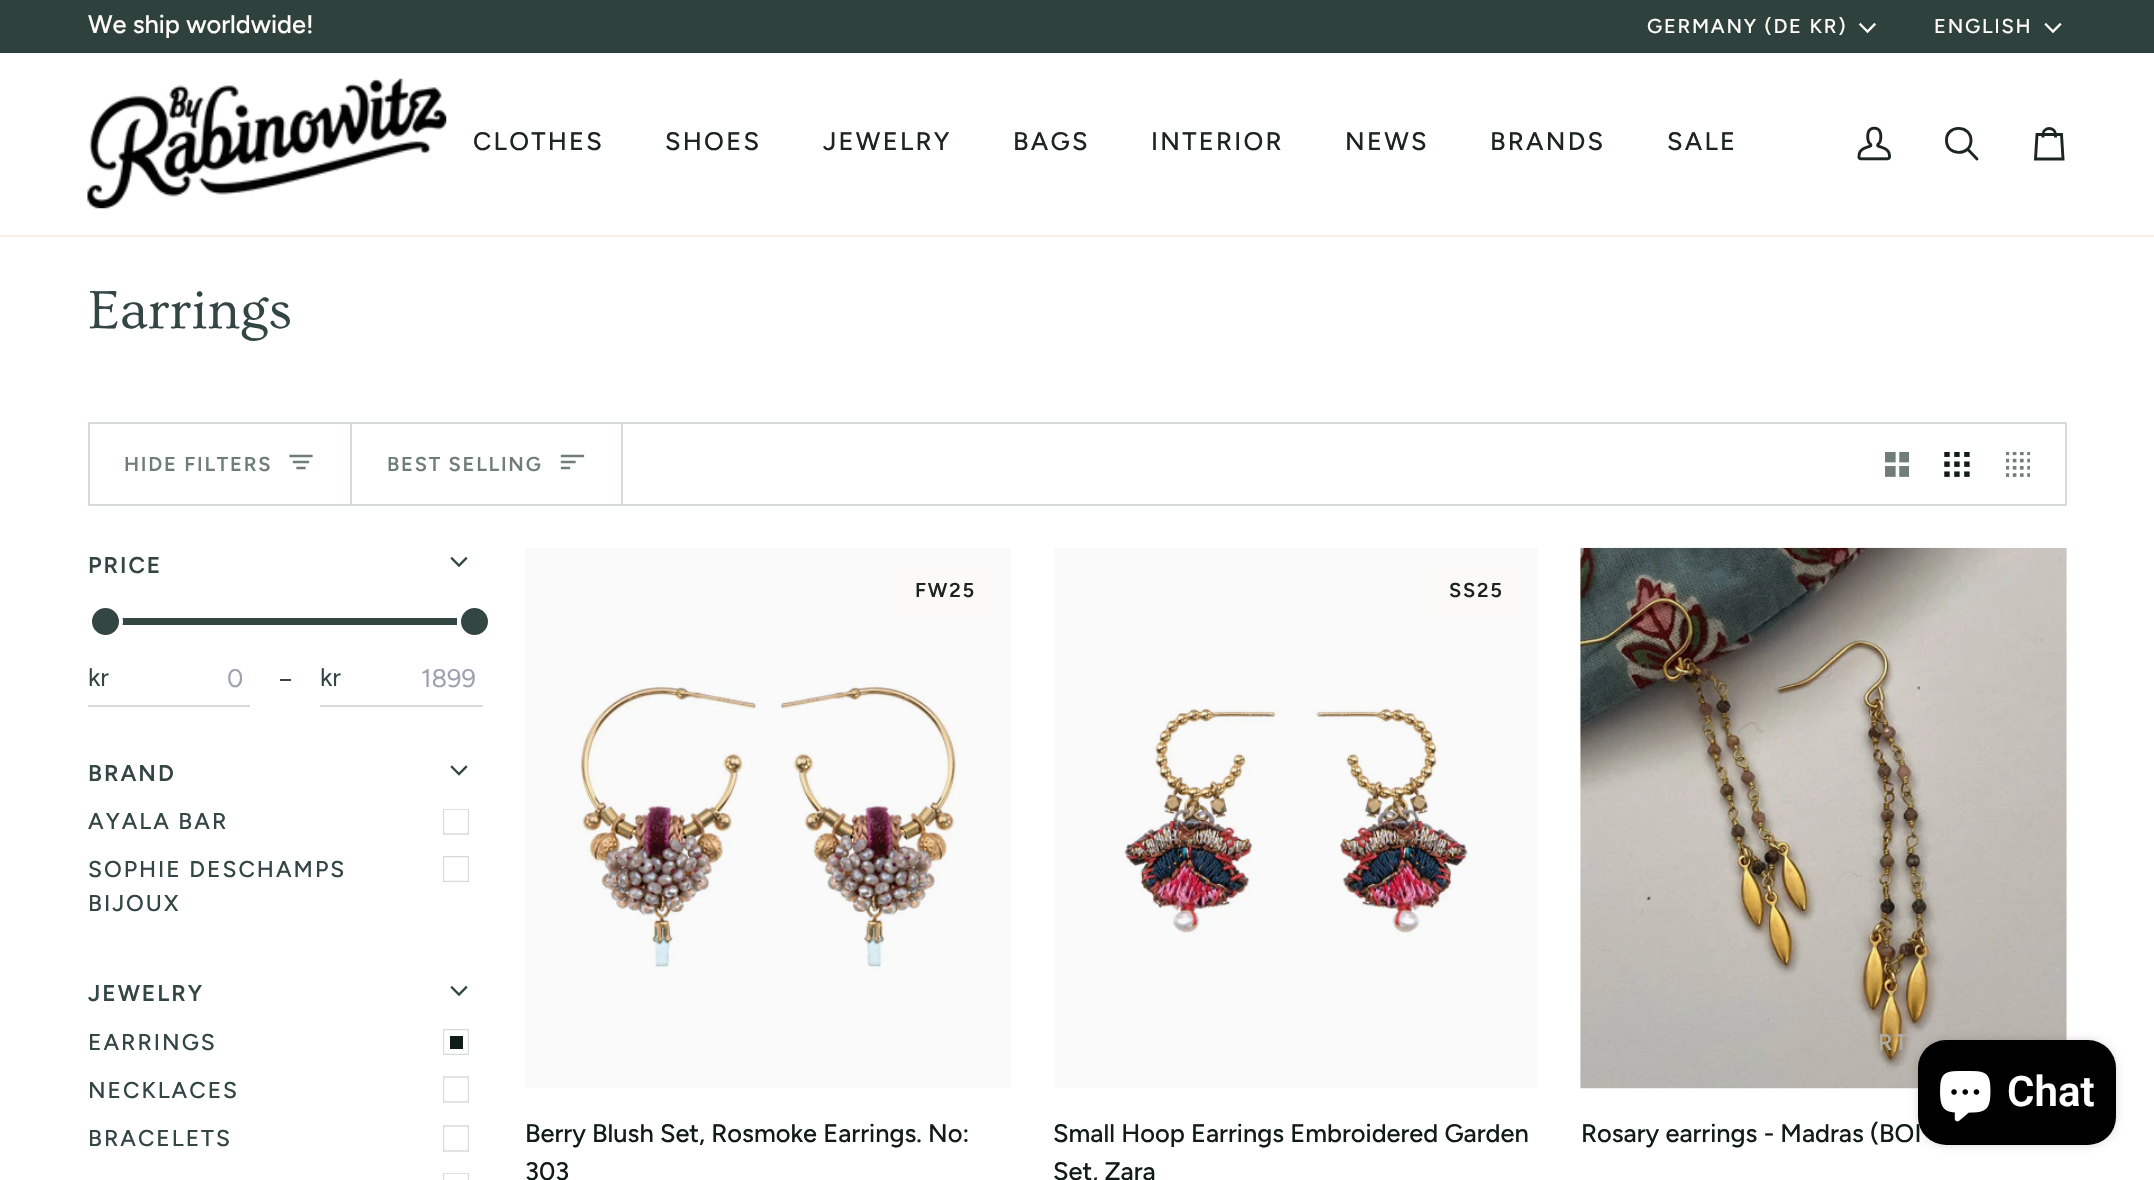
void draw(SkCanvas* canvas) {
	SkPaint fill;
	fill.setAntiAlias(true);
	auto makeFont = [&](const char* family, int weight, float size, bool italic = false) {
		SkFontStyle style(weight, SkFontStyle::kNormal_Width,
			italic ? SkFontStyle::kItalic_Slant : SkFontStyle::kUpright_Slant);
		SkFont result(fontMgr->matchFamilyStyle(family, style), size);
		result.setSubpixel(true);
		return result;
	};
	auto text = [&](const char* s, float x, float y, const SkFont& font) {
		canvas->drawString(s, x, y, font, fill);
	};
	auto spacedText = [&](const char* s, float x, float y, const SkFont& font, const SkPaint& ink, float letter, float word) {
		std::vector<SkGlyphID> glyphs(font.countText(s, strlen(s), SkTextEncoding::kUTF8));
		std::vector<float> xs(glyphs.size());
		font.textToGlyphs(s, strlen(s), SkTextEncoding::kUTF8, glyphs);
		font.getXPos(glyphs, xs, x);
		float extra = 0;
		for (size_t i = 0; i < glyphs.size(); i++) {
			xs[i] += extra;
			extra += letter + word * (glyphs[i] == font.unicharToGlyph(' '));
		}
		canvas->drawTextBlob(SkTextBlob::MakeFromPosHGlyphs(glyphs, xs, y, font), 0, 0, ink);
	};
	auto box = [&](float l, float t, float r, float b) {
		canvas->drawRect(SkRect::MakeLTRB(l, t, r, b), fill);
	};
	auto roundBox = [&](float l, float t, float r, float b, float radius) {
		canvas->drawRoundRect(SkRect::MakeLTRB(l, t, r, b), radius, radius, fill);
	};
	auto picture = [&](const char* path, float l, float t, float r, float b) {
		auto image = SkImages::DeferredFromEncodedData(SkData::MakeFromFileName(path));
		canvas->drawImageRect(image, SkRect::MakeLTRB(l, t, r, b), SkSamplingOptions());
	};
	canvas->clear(0xFFFFFFFF);
	fill.setColor(0xFFF8F0E7);
	box(0, 235, 2154, 237);
	fill.setColor(0xFF2E413D);
	box(0, 0, 2154, 53);
	fill.setStyle(SkPaint::kStroke_Style);
	fill.setStrokeWidth(2.3f);
	fill.setStrokeCap(SkPaint::kSquare_Cap);
	fill.setColor(0xFFFFFCF9);
	canvas->drawPath(SkPathBuilder().moveTo(1860.5f, 24.5f).lineTo(1867.5f, 31.5f).lineTo(1874.5f, 24.5f).detach(), fill);
	canvas->drawPath(SkPathBuilder().moveTo(2046, 24.5f).lineTo(2053, 31.5f).lineTo(2060, 24.5f).detach(), fill);
	picture("image0.png", 87, 78, 447, 209);
	picture("image1.png", 1857, 126, 1891, 161);
	fill.setStrokeWidth(2.9f);
	fill.setStrokeCap(SkPaint::kRound_Cap);
	fill.setStrokeJoin(SkPaint::kRound_Join);
	fill.setColor(0xFF1D2523);
	canvas->drawPath(SkPathBuilder().moveTo(1971, 140.5f).cubicTo(1971, 156, 1947, 156.5f, 1946.5f, 141).cubicTo(1945.5f, 124.5f, 1971, 124, 1971, 140.5f).close().moveTo(1977, 159).lineTo(1967.5f, 149).close().detach(), fill);
	fill.setStrokeCap(SkPaint::kButt_Cap);
	fill.setStrokeJoin(SkPaint::kMiter_Join);
	canvas->drawPath(SkPathBuilder().moveTo(2055.5f, 137.5f).lineTo(2055.5f, 134.5f).lineTo(2061.5f, 134.5f).lineTo(2063, 159).lineTo(2035.5f, 159).lineTo(2037, 134.5f).lineTo(2043, 134.5f).cubicTo(2043, 126.5f, 2055.5f, 126.5f, 2055.5f, 134.5f).lineTo(2043, 134.5f).lineTo(2043, 137.5f).detach(), fill);
	fill.setStrokeWidth(2);
	fill.setColor(0xFFD6DAD9);
	canvas->drawRect(SkRect::MakeLTRB(89, 423, 2066, 505), fill);
	fill.setStyle(SkPaint::kFill_Style);
	box(350, 424, 352, 504);
	fill.setStyle(SkPaint::kStroke_Style);
	fill.setStrokeWidth(2.3f);
	fill.setStrokeCap(SkPaint::kSquare_Cap);
	fill.setColor(0xFF707E7A);
	canvas->drawPath(SkPathBuilder().moveTo(311.5f, 456).lineTo(290.5f, 456).moveTo(308, 462).lineTo(294, 462).moveTo(304.5f, 468).lineTo(297.5f, 468).detach(), fill);
	fill.setStyle(SkPaint::kFill_Style);
	fill.setColor(0xFFD6DAD9);
	box(621, 424, 623, 504);
	fill.setStyle(SkPaint::kStroke_Style);
	fill.setColor(0xFF707E7A);
	canvas->drawPath(SkPathBuilder().moveTo(583, 456).lineTo(562, 456).moveTo(574.5f, 462).lineTo(562, 462).moveTo(569, 468).lineTo(562, 468).detach(), fill);
	picture("image2.png", 1885, 452, 1909, 477);
	picture("image3.png", 1944, 452, 1970, 477);
	picture("image4.png", 2006, 452, 2030, 477);
	fill.setColor(0xFF334641);
	canvas->drawPath(SkPathBuilder().moveTo(452, 558.5f).lineTo(459, 565.5f).lineTo(466, 558.5f).detach(), fill);
	fill.setStyle(SkPaint::kFill_Style);
	canvas->drawPath(SkPathBuilder().moveTo(91.5f, 618).lineTo(457, 618).lineTo(457, 625).lineTo(91.5f, 625).cubicTo(89.5f, 625, 88, 623.5f, 88, 621.5f).cubicTo(88, 619.5f, 89.5f, 618, 91.5f, 618).close().detach(), fill);
	canvas->drawCircle(105.5f, 621.5f, 15.5f, fill);
	fill.setStyle(SkPaint::kStroke_Style);
	fill.setStrokeWidth(4);
	fill.setStrokeCap(SkPaint::kButt_Cap);
	fill.setColor(0xFFFFFFFF);
	canvas->drawCircle(105.5f, 621.5f, 15.5f, fill);
	fill.setStyle(SkPaint::kFill_Style);
	fill.setColor(0xFF334641);
	canvas->drawCircle(474.5f, 621.5f, 15.5f, fill);
	fill.setStyle(SkPaint::kStroke_Style);
	fill.setColor(0xFFFFFFFF);
	canvas->drawCircle(474.5f, 621.5f, 15.5f, fill);
	fill.setStyle(SkPaint::kFill_Style);
	fill.setColor(0xFFD6DAD9);
	box(88, 705, 250, 707);
	fill.setColor(0xFF334641);
	box(280, 679, 291, 681);
	fill.setColor(0xFFD6DAD9);
	box(320, 705, 483, 707);
	fill.setStyle(SkPaint::kStroke_Style);
	fill.setStrokeWidth(2.3f);
	fill.setStrokeCap(SkPaint::kSquare_Cap);
	fill.setColor(0xFF334641);
	canvas->drawPath(SkPathBuilder().moveTo(452, 767).lineTo(459, 774).lineTo(466, 767).detach(), fill);
	canvas->save();
	canvas->clipRect(SkRect::MakeLTRB(443, 809, 469, 835));
	fill.setStrokeWidth(1.3f);
	fill.setStrokeCap(SkPaint::kButt_Cap);
	fill.setColor(0xFFD6DAD9);
	canvas->drawPath(SkPathBuilder().moveTo(443.5f, 809).lineTo(468.5f, 809).lineTo(468.5f, 834).lineTo(443.5f, 834).close().detach(), fill);
	canvas->restore();
	canvas->save();
	canvas->clipRect(SkRect::MakeLTRB(443, 856, 469, 882));
	canvas->drawPath(SkPathBuilder().moveTo(443.5f, 856.5f).lineTo(468.5f, 856.5f).lineTo(468.5f, 881.5f).lineTo(443.5f, 881.5f).close().detach(), fill);
	canvas->restore();
	fill.setStrokeWidth(2.3f);
	fill.setStrokeCap(SkPaint::kSquare_Cap);
	fill.setColor(0xFF334641);
	canvas->drawPath(SkPathBuilder().moveTo(452, 987.5f).lineTo(459, 994.5f).lineTo(466, 987.5f).detach(), fill);
	canvas->save();
	canvas->clipRect(SkRect::MakeLTRB(443, 1029, 469, 1055));
	fill.setStrokeWidth(1.3f);
	fill.setStrokeCap(SkPaint::kButt_Cap);
	fill.setColor(0xFFD6DAD9);
	canvas->drawPath(SkPathBuilder().moveTo(443.5f, 1029.5f).lineTo(468.5f, 1029.5f).lineTo(468.5f, 1054.5f).lineTo(443.5f, 1054.5f).close().detach(), fill);
	canvas->restore();
	fill.setStyle(SkPaint::kFill_Style);
	fill.setColor(0xFF111C19);
	box(450, 1036, 463, 1049);
	canvas->save();
	canvas->clipRect(SkRect::MakeLTRB(443, 1076, 469, 1103));
	fill.setStyle(SkPaint::kStroke_Style);
	fill.setColor(0xFFD6DAD9);
	canvas->drawPath(SkPathBuilder().moveTo(443.5f, 1077).lineTo(468.5f, 1077).lineTo(468.5f, 1102).lineTo(443.5f, 1102).close().detach(), fill);
	canvas->restore();
	canvas->save();
	canvas->clipRect(SkRect::MakeLTRB(443, 1125, 469, 1152));
	canvas->drawPath(SkPathBuilder().moveTo(443.5f, 1126).lineTo(468.5f, 1126).lineTo(468.5f, 1151).lineTo(443.5f, 1151).close().detach(), fill);
	canvas->restore();
	canvas->save();
	canvas->clipRect(SkRect::MakeLTRB(443, 1173, 469, 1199));
	canvas->drawPath(SkPathBuilder().moveTo(443.5f, 1173).lineTo(468.5f, 1173).lineTo(468.5f, 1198).lineTo(443.5f, 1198).close().detach(), fill);
	canvas->restore();
	picture("image5.png", 525, 548, 1011, 1088);
	fill.setStyle(SkPaint::kFill_Style);
	fill.setColor(0xFFFCFAF7);
	box(898, 565, 994, 616);
	picture("image6.png", 1054, 548, 1538, 1088);
	box(1432, 565, 1521, 616);
	picture("image7.png", 1580, 547, 2067, 1089);
	fill.setColor(0x26000000);
	fill.setMaskFilter(SkMaskFilter::MakeBlur(kNormal_SkBlurStyle, 4.5f));
	canvas->drawRoundRect(SkRect::MakeLTRB(1918, 1040, 2116, 1145), 28, 28, fill);
	fill.setMaskFilter(nullptr);
	auto font1 = makeFont("Figtree", 500, 25.4f);
	fill.setColor(0xFFFFFCF9);
	text("We ship worldwide!", 88, 33, font1);
	auto font2 = makeFont("Figtree", 500, 20.1f);
	spacedText("GERMANY (DE KR)", 1647, 33, font2, fill, 1.75f, 0);
	spacedText("ENGLISH", 1934, 33, font2, fill, 1.75f, 0);
	fill.setColor(0xFF1D2523);
	spacedText("CLOTHES", 473, 150, font1, fill, 2.25f, 0);
	spacedText("SHOES", 665, 150, font1, fill, 2.25f, 0);
	spacedText("JEWELRY", 823, 150, font1, fill, 2.25f, 0);
	spacedText("BAGS", 1013, 150, font1, fill, 2.25f, 0);
	spacedText("INTERIOR", 1151, 150, font1, fill, 2.25f, 0);
	spacedText("NEWS", 1345, 150, font1, fill, 2.25f, 0);
	spacedText("BRANDS", 1490, 150, font1, fill, 2.25f, 0);
	spacedText("SALE", 1667, 150, font1, fill, 2.25f, 0);
	auto font3 = makeFont("Ovo", 400, 56);
	fill.setColor(0xFF334641);
	text("Earrings", 88, 328, font3);
	auto font4 = makeFont("Figtree", 600, 20.1f);
	fill.setColor(0xFF707E7A);
	spacedText("HIDE FILTERS", 124, 471, font4, fill, 1.75f, 0);
	spacedText("BEST SELLING", 387, 471, font4, fill, 1.75f, 0);
	auto font5 = makeFont("Figtree", 600, 22.75f);
	fill.setColor(0xFF334641);
	spacedText("PRICE", 88, 573, font5, fill, 2, 0);
	auto font6 = makeFont("Figtree", 400, 25.4f);
	text("kr", 88, 686, font6);
	fill.setColor(0xFF9CA3AF);
	text("0", 227, 687, font6);
	fill.setColor(0xFF334641);
	text("kr", 320, 686, font6);
	fill.setColor(0xFF9CA3AF);
	text("1899", 421, 687, font6);
	fill.setColor(0xFF334641);
	spacedText("BRAND", 88, 781, font5, fill, 2, 0);
	auto font7 = makeFont("Figtree", 500, 22.75f);
	spacedText("AYALA BAR", 88, 829, font7, fill, 2, 0);
	spacedText("SOPHIE DESCHAMPS", 88, 877, font7, fill, 2, 0);
	spacedText("BIJOUX", 88, 911, font7, fill, 2, 0);
	spacedText("JEWELRY", 88, 1001, font5, fill, 2, 0);
	spacedText("EARRINGS", 88, 1050, font7, fill, 2, 0);
	spacedText("NECKLACES", 88, 1098, font7, fill, 2, 0);
	spacedText("BRACELETS", 88, 1146, font7, fill, 2, 0);
	fill.setColor(0xFF1D2523);
	spacedText("FW25", 915, 597, font4, fill, 1.75f, 0);
	fill.setColor(0xFF111C19);
	text("Berry Blush Set, Rosmoke Earrings. No:", 525, 1142, font1);
	text("303", 525, 1180, font1);
	fill.setColor(0xFF1D2523);
	spacedText("SS25", 1449, 597, font4, fill, 1.75f, 0);
	fill.setColor(0xFF111C19);
	text("Small Hoop Earrings Embroidered Garden", 1053, 1142, font1);
	text("Set, Zara", 1053, 1180, font1);
	fill.setColor(0xFFB2AA9E);
	spacedText("RT", 1878, 1050, font5, fill, 2, 0);
	fill.setColor(0xFF111C19);
	text("Rosary earrings - Madras (BOI", 1581, 1142, font1);
	fill.setColor(0xFF000000);
	roundBox(1918, 1040, 2116, 1145, 28);
	picture("image8.png", 1940, 1071, 1991, 1122);
	auto font8 = makeFont("Roboto", 600, 42);
	fill.setColor(0xFFFFFFFF);
	text("Chat", 2007, 1106, font8);
}
